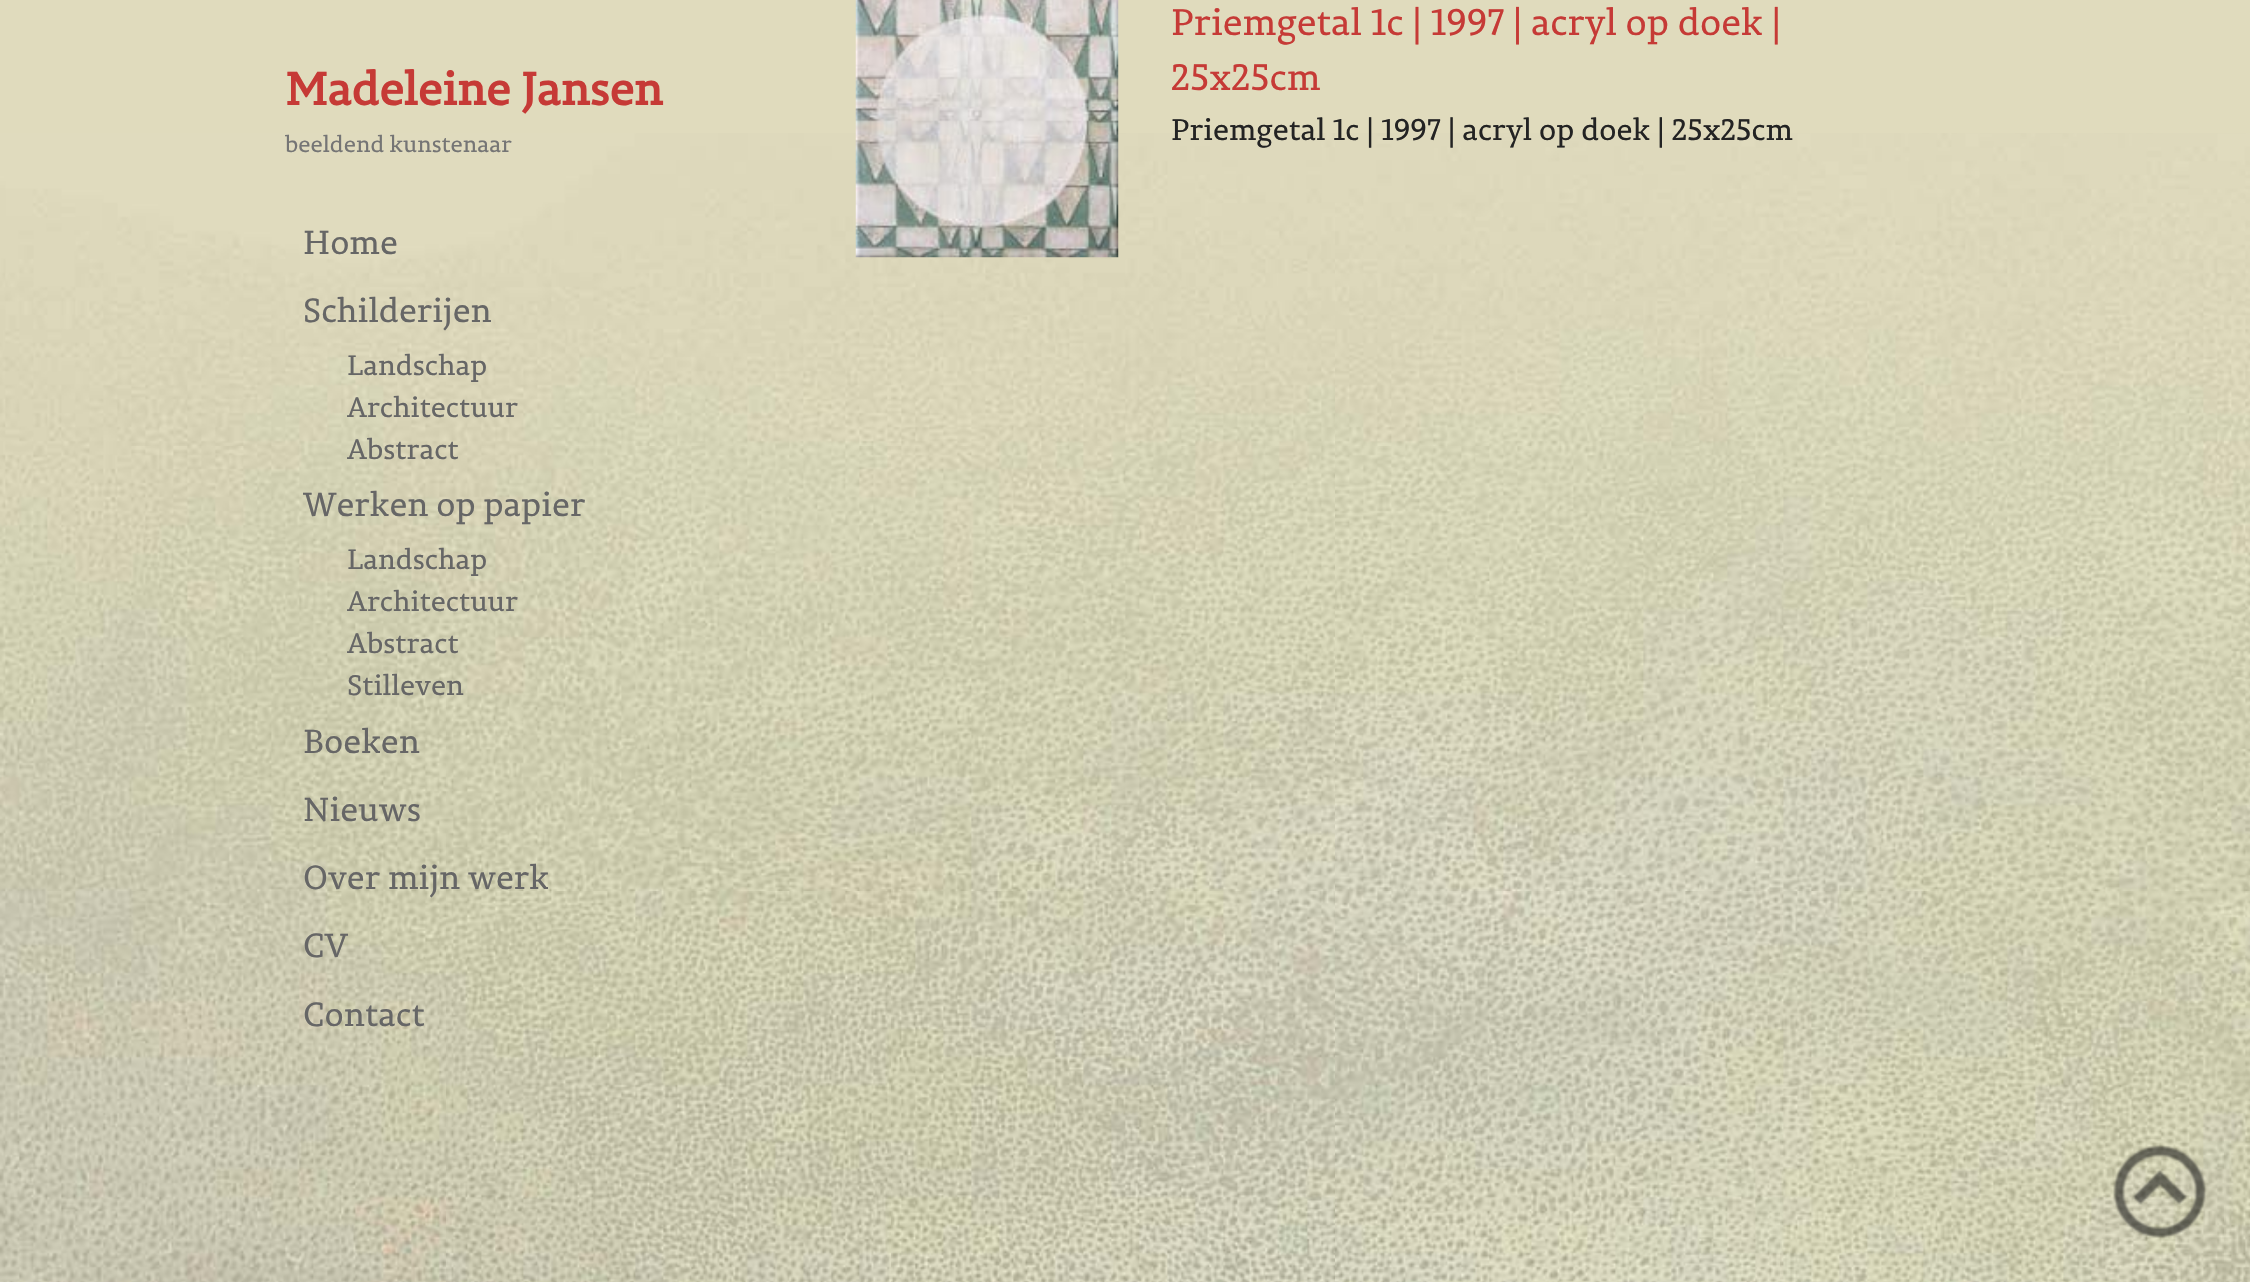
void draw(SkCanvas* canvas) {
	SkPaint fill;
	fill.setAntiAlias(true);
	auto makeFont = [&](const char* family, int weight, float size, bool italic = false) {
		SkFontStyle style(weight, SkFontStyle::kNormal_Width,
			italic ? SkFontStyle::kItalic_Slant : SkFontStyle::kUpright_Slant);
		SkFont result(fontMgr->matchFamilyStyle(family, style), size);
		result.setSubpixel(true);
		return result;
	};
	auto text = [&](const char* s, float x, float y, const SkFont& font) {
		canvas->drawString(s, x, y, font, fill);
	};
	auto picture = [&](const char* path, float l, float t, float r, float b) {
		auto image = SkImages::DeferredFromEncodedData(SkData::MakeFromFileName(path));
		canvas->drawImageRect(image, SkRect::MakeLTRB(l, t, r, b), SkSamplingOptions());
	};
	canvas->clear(0xFFE0DBBD);
	picture("image0.png", 0, 133, 2250, 1282);
	picture("image1.png", 855, 0, 1119, 258);
	picture("image2.png", 2113, 1145, 2207, 1238);
	auto font1 = makeFont("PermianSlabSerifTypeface", 700, 45.5f);
	fill.setColor(0xFFC63A36);
	text("Madeleine Jansen", 285, 105, font1);
	auto font2 = makeFont("PermianSlabSerifTypeface", 400, 22.75f);
	fill.setColor(0xFF757575);
	text("beeldend kunstenaar", 285, 152, font2);
	auto font3 = makeFont("PermianSlabSerifTypeface", 400, 33.25f);
	fill.setColor(0xFF666666);
	text("Home", 303, 254, font3);
	text("Schilderijen", 303, 322, font3);
	auto font4 = makeFont("PermianSlabSerifTypeface", 400, 28);
	text("Landschap", 347, 375, font4);
	text("Architectuur", 347, 417, font4);
	text("Abstract", 347, 459, font4);
	text("Werken op papier", 303, 516, font3);
	text("Landschap", 347, 569, font4);
	text("Architectuur", 347, 611, font4);
	text("Abstract", 347, 653, font4);
	text("Stilleven", 347, 695, font4);
	text("Boeken", 303, 753, font3);
	text("Nieuws", 303, 821, font3);
	text("Over mijn werk", 303, 889, font3);
	text("CV", 303, 957, font3);
	text("Contact", 303, 1026, font3);
	auto font5 = makeFont("PermianSlabSerifTypeface", 400, 36.75f);
	fill.setColor(0xFFC63A36);
	text("Priemgetal 1c | 1997 | acryl op doek |", 1171, 35, font5);
	text("25x25cm", 1171, 90, font5);
	auto font6 = makeFont("PermianSlabSerifTypeface", 400, 29.75f);
	fill.setColor(0xFF232323);
	text("Priemgetal 1c | 1997 | acryl op doek | 25x25cm", 1171, 140, font6);
}
